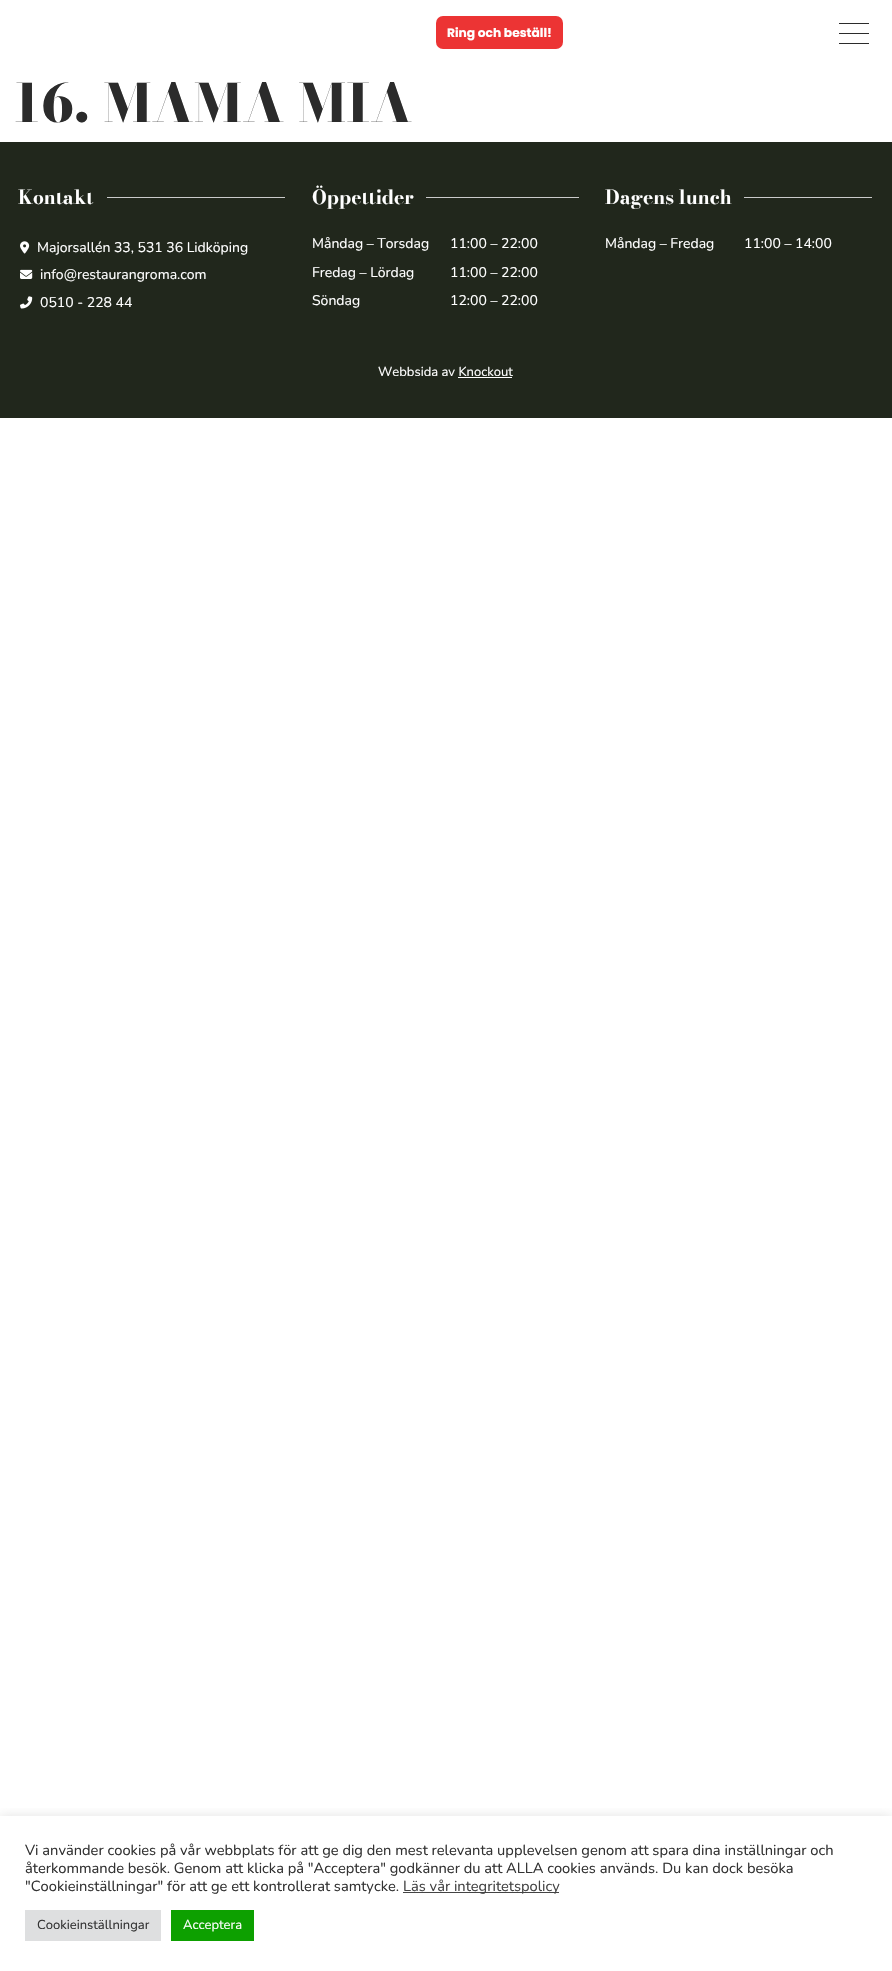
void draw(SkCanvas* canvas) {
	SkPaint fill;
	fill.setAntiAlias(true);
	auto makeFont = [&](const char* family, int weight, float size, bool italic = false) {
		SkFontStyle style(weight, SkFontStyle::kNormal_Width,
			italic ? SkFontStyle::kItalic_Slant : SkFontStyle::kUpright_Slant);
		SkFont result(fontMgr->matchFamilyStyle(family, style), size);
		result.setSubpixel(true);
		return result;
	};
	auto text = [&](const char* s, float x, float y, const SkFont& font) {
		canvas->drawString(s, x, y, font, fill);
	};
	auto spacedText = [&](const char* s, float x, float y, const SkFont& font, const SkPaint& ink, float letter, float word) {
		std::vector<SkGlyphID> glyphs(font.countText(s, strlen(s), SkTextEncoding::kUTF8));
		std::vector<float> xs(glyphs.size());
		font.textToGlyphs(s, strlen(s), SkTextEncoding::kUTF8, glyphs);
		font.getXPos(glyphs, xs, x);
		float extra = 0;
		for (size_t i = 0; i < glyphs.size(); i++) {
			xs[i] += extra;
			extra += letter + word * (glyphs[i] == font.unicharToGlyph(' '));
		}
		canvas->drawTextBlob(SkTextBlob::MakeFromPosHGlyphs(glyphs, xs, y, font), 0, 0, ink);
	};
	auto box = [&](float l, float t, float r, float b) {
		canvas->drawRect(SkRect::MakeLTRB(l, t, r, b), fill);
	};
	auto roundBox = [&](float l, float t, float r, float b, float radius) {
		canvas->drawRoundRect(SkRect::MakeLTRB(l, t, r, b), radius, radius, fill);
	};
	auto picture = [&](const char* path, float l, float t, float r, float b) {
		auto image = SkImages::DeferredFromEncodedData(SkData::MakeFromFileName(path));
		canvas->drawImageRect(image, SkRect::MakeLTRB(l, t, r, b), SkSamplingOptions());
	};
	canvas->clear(0xFFFFFFFF);
	fill.setColor(0xFFEC3434);
	roundBox(436, 16, 563, 49, 7);
	fill.setColor(0xFF2B2B2B);
	box(839, 43, 869, 44);
	box(839, 33, 869, 34);
	box(839, 23, 869, 24);
	fill.setColor(0xFF21271C);
	box(0, 142, 892, 418);
	fill.setColor(0xFFCACACA);
	box(107, 197, 285, 198);
	picture("image0.png", 20, 241, 30, 254);
	picture("image1.png", 20, 269, 33, 279);
	picture("image2.png", 20, 296, 33, 309);
	box(426, 197, 579, 198);
	box(744, 197, 872, 198);
	fill.setColor(0xFFFFFFFF);
	box(458, 377, 512, 378);
	canvas->save();
	canvas->clipRect(SkRect::MakeLTRB(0, 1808, 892, 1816));
	fill.setColor(0x4DACABAB);
	fill.setMaskFilter(SkMaskFilter::MakeBlur(kNormal_SkBlurStyle, 5));
	canvas->drawRect(SkRect::MakeLTRB(0, 1815, 892, 1970), fill);
	fill.setMaskFilter(nullptr);
	canvas->restore();
	fill.setColor(0xFF444444);
	box(403, 1892, 559, 1893);
	fill.setColor(0xFFDEDFE0);
	box(25, 1910, 161, 1941);
	fill.setColor(0xFF0DA000);
	box(171, 1910, 254, 1941);
	auto font1 = makeFont("Poppins", 700, 12.25f);
	fill.setColor(0xFFFFFFFF);
	text("Ring och beställ!", 447, 37, font1);
	auto font2 = makeFont("Bodoni Moda", 800, 52.25f);
	fill.setColor(0xFF2B2B2B);
	spacedText("16. MAMA MIA", 13, 122, font2, fill, 0.5f, 0);
	auto font3 = makeFont("Bodoni Moda", 700, 19.25f);
	fill.setColor(0xFFFFFFFF);
	text("Kontakt", 18, 204, font3);
	auto font4 = makeFont("Nunito", 400, 14);
	text("Majorsallén 33, 531 36 Lidköping", 37, 252, font4);
	text("info@restaurangroma.com", 40, 279, font4);
	text("0510 - 228 44", 40, 307, font4);
	text("Öppettider", 312, 204, font3);
	text("Måndag – Torsdag", 312, 248, font4);
	text("11:00 – 22:00", 450, 248, font4);
	text("Fredag – Lördag", 312, 277, font4);
	text("11:00 – 22:00", 450, 277, font4);
	text("Söndag", 312, 305, font4);
	text("12:00 – 22:00", 450, 305, font4);
	text("Dagens lunch", 605, 204, font3);
	text("Måndag – Fredag", 605, 248, font4);
	text("11:00 – 14:00", 744, 248, font4);
	auto font5 = makeFont("Nunito", 400, 13);
	text("Webbsida av Knockout", 378, 376, font5);
	auto font6 = makeFont("Nunito", 400, 14.67f);
	fill.setColor(0xFF333333);
	text("Vi använder cookies på vår webbplats för att ge dig den mest relevanta upplevelsen genom att spara dina inställningar och", 25, 1855, font6);
	text("återkommande besök. Genom att klicka på \"Acceptera\" godkänner du att ALLA cookies används. Du kan dock besöka", 25, 1873, font6);
	text("\"Cookieinställningar\" för att ge ett kontrollerat samtycke.", 25, 1891, font6);
	fill.setColor(0xFF444444);
	text("Läs vår integritetspolicy", 403, 1891, font6);
	fill.setColor(0xFF333333);
	text("Cookieinställningar", 37, 1929, font5);
	fill.setColor(0xFFFFFFFF);
	text("Acceptera", 183, 1929, font5);
}
